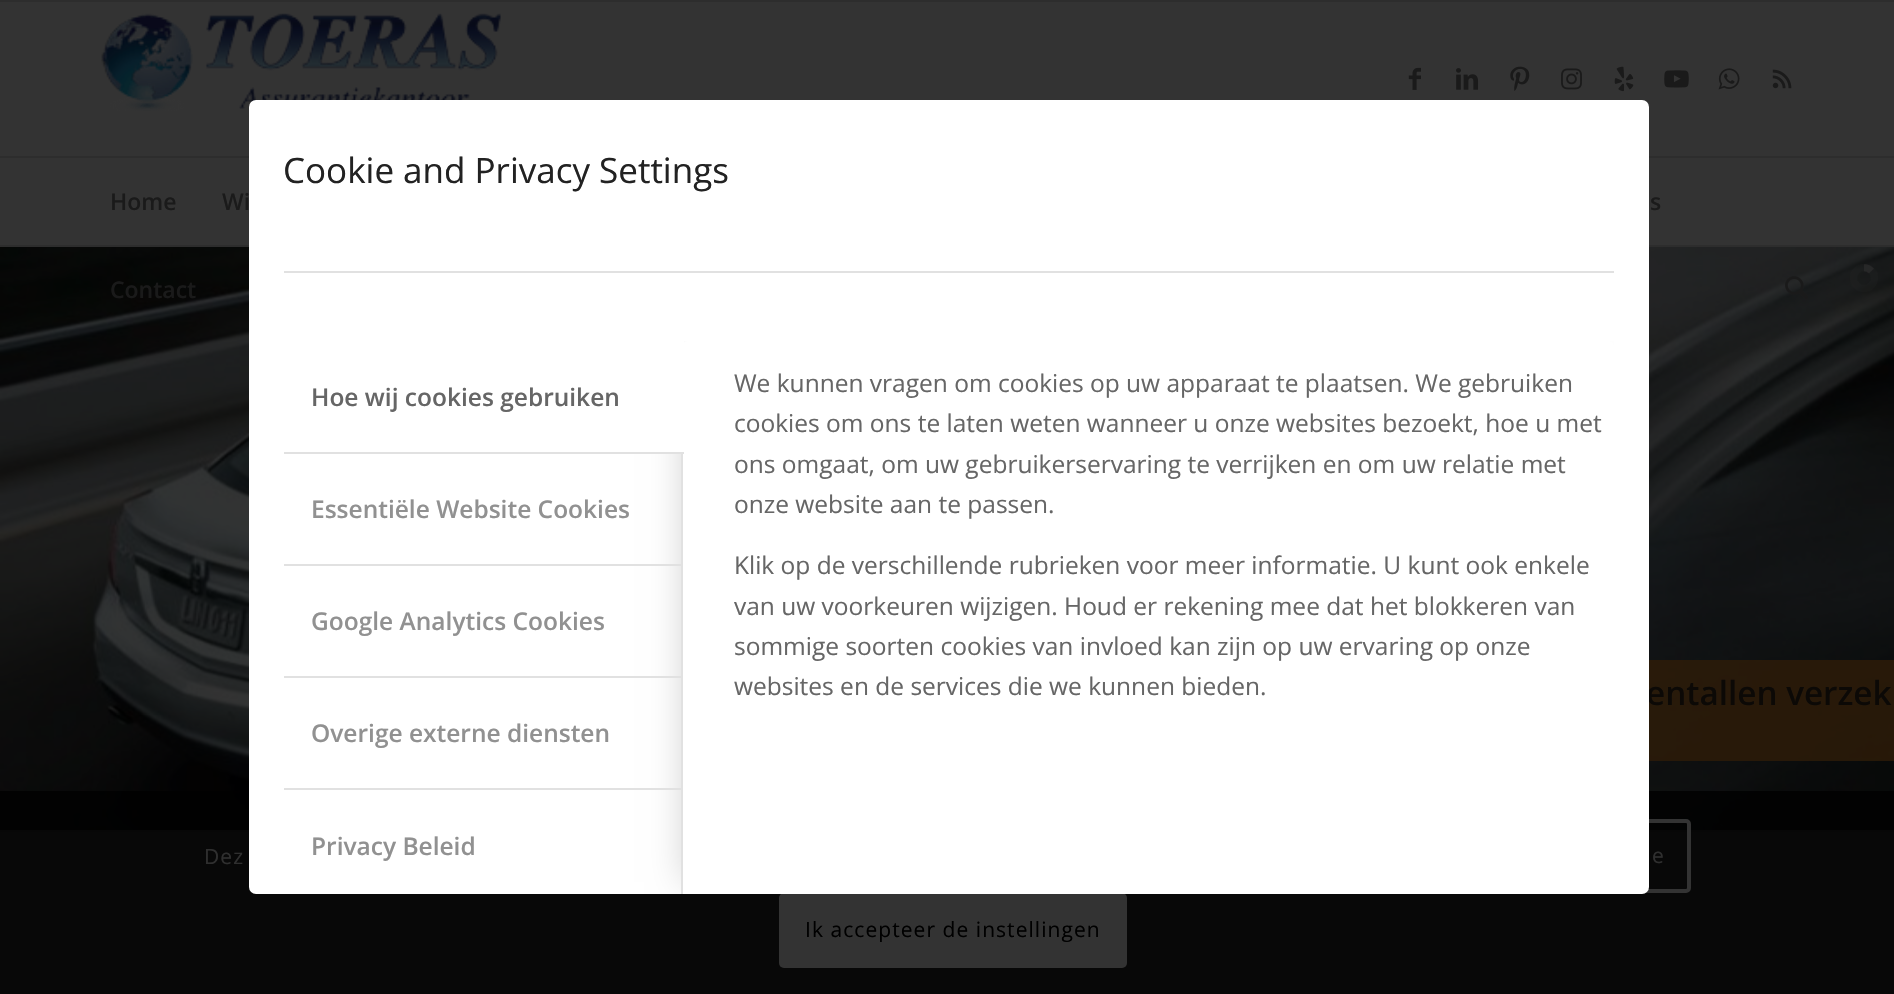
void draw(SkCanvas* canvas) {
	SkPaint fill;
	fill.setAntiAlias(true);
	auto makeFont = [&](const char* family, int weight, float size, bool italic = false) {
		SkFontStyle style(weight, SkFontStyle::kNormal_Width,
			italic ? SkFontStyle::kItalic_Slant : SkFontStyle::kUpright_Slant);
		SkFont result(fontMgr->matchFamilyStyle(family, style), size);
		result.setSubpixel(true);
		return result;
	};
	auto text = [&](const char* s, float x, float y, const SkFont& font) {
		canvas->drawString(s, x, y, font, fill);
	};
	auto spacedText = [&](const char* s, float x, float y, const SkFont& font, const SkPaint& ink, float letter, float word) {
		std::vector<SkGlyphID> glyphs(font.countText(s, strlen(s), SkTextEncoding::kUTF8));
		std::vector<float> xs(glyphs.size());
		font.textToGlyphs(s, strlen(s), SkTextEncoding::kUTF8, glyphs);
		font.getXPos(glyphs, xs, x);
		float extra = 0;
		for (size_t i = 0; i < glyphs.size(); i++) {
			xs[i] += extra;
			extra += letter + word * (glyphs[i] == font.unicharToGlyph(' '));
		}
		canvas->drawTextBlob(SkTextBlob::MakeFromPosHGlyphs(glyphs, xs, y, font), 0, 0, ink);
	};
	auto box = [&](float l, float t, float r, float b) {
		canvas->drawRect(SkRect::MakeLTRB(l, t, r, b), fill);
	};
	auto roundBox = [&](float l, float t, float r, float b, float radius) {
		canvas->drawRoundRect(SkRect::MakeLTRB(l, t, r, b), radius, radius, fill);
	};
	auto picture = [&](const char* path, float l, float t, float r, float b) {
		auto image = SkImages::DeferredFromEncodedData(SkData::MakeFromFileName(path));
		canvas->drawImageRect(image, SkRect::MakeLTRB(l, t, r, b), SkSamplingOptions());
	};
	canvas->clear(0xFF333333);
	fill.setColor(0xFF2D2D2D);
	box(0, 0, 1894, 2);
	box(0, 245, 1894, 247);
	picture("image0.png", 101, 13, 501, 111);
	picture("image1.png", 1408, 67, 1421, 90);
	picture("image2.png", 1456, 68, 1479, 90);
	picture("image3.png", 1510, 66, 1530, 91);
	picture("image4.png", 1561, 68, 1582, 90);
	picture("image5.png", 1614, 66, 1634, 92);
	picture("image6.png", 1664, 70, 1689, 88);
	picture("image7.png", 1718, 68, 1740, 90);
	picture("image8.png", 1772, 69, 1792, 89);
	box(0, 156, 1894, 158);
	picture("image10.png", 0, 247, 1894, 830);
	picture("image9.png", 1785, 276, 1808, 300);
	fill.setStyle(SkPaint::kStroke_Style);
	fill.setStrokeWidth(7);
	fill.setColor(0x212D2D2D);
	canvas->drawCircle(1864, 278, 10.5f, fill);
	canvas->save();
	canvas->clipRect(SkRect::MakeLTRB(1864, 264, 1878, 292));
	canvas->clipPath(SkPathBuilder().moveTo(1864.5f, 258.5f).lineTo(1874, 268.5f).lineTo(1853.5f, 288).lineTo(1844, 277.5f).close().detach(), true);
	fill.setColor(0xA62D2D2D);
	canvas->drawPath(SkPathBuilder().moveTo(1871.5f, 271).cubicTo(1881, 281, 1865.5f, 295.5f, 1856, 285.5f).cubicTo(1846.5f, 275.5f, 1862, 261, 1871.5f, 271).close().detach(), fill);
	canvas->restore();
	fill.setStyle(SkPaint::kFill_Style);
	fill.setColor(0xCF2D1B08);
	box(1649, 660, 1894, 761);
	fill.setColor(0xFF2D2D2D);
	box(0, 830, 1894, 832);
	fill.setColor(0xD9000000);
	box(0, 791, 1894, 994);
	fill.setStyle(SkPaint::kStroke_Style);
	fill.setStrokeWidth(4);
	fill.setColor(0xFF333333);
	canvas->drawRoundRect(SkRect::MakeLTRB(1465, 821, 1689, 891), 3, 3, fill);
	fill.setStyle(SkPaint::kFill_Style);
	roundBox(779, 893, 1127, 968, 5);
	auto font1 = makeFont("Open Sans", 600, 23);
	fill.setColor(0xFF1A1A1A);
	text("Home", 110, 210, font1);
	text("Wi", 222, 210, font1);
	text("s", 1650, 210, font1);
	text("Contact", 110, 298, font1);
	auto font2 = makeFont("Open Sans", 600, 33.25f);
	fill.setColor(0xFF0C0906);
	text("entallen verzek", 1646, 705, font2);
	fill.setColor(0xFFFFFFFF);
	roundBox(249, 100, 1649, 894, 7);
	canvas->save();
	canvas->clipPath(SkPathBuilder().moveTo(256, 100).lineTo(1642, 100).cubicTo(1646, 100, 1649, 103, 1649, 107).lineTo(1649, 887).cubicTo(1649, 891, 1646, 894, 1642, 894).lineTo(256, 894).cubicTo(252, 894, 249, 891, 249, 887).lineTo(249, 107).cubicTo(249, 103, 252, 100, 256, 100).close().detach(), true);
	canvas->clipRect(SkRect::MakeLTRB(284, 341, 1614, 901));
	fill.setColor(0x33000000);
	fill.setMaskFilter(SkMaskFilter::MakeBlur(kNormal_SkBlurStyle, 17.5f));
	canvas->drawRect(SkRect::MakeLTRB(686, 359, 1582, 882), fill);
	fill.setMaskFilter(nullptr);
	canvas->restore();
	fill.setColor(0xFFE1E1E1);
	box(681, 452, 683, 565);
	fill.setColor(0xFFFFFFFF);
	canvas->drawPath(SkPathBuilder().moveTo(687, 341).lineTo(1610, 341).cubicTo(1612, 341, 1614, 343, 1614, 345).lineTo(1614, 894).lineTo(683, 894).lineTo(683, 345).cubicTo(683, 343, 685, 341, 687, 341).close().detach(), fill);
	canvas->drawPath(SkPathBuilder().moveTo(288, 341).lineTo(684, 341).lineTo(684, 453).lineTo(284, 453).lineTo(284, 345).cubicTo(284, 343, 286, 341, 288, 341).close().detach(), fill);
	auto font3 = makeFont("Open Sans", 600, 24.5f);
	fill.setColor(0xFF666666);
	text("Hoe wij cookies gebruiken", 311, 406, font3);
	fill.setColor(0xFFE1E1E1);
	box(284, 452, 684, 454);
	fill.setColor(0xFF919191);
	text("Privacy Beleid", 311, 855, font3);
	fill.setColor(0xFFE1E1E1);
	box(284, 564, 683, 566);
	box(681, 564, 683, 677);
	box(284, 676, 683, 678);
	box(681, 676, 683, 789);
	box(284, 788, 683, 790);
	box(681, 788, 683, 894);
	fill.setColor(0xFF919191);
	text("Overige externe diensten", 311, 742, font3);
	text("Google Analytics Cookies", 311, 630, font3);
	text("Essentiële Website Cookies", 311, 518, font3);
	auto font4 = makeFont("Open Sans", 400, 24.5f);
	fill.setColor(0xFF666666);
	text("websites en de services die we kunnen bieden.", 734, 695, font4);
	text("sommige soorten cookies van invloed kan zijn op uw ervaring op onze", 734, 655, font4);
	text("van uw voorkeuren wijzigen. Houd er rekening mee dat het blokkeren van", 734, 615, font4);
	text("Klik op de verschillende rubrieken voor meer informatie. U kunt ook enkele", 734, 574, font4);
	text("onze website aan te passen.", 734, 513, font4);
	text("ons omgaat, om uw gebruikerservaring te verrijken en om uw relatie met", 734, 473, font4);
	text("cookies om ons te laten weten wanneer u onze websites bezoekt, hoe u met", 734, 432, font4);
	text("We kunnen vragen om cookies op uw apparaat te plaatsen. We gebruiken", 734, 392, font4);
	fill.setColor(0xFFE1E1E1);
	box(284, 271, 1614, 273);
	auto font5 = makeFont("Open Sans", 400, 35);
	fill.setColor(0xFF222222);
	text("Cookie and Privacy Settings", 283, 183, font5);
	auto font6 = makeFont("Open Sans", 400, 21);
	fill.setColor(0xFF2F2F2F);
	spacedText("Dez", 204, 864, font6, fill, 1.05f, 0);
	spacedText("e", 1652, 863, font6, fill, 1.05f, 0);
	fill.setColor(0xFF000000);
	spacedText("Ik accepteer de instellingen", 805, 937, font6, fill, 1.05f, 0);
}
